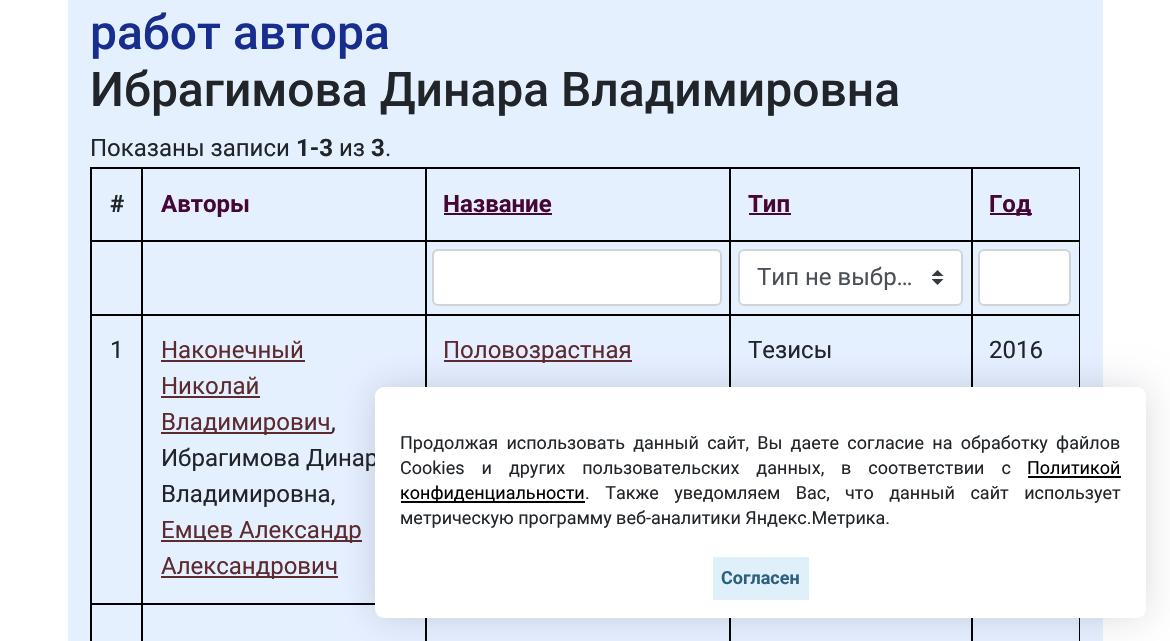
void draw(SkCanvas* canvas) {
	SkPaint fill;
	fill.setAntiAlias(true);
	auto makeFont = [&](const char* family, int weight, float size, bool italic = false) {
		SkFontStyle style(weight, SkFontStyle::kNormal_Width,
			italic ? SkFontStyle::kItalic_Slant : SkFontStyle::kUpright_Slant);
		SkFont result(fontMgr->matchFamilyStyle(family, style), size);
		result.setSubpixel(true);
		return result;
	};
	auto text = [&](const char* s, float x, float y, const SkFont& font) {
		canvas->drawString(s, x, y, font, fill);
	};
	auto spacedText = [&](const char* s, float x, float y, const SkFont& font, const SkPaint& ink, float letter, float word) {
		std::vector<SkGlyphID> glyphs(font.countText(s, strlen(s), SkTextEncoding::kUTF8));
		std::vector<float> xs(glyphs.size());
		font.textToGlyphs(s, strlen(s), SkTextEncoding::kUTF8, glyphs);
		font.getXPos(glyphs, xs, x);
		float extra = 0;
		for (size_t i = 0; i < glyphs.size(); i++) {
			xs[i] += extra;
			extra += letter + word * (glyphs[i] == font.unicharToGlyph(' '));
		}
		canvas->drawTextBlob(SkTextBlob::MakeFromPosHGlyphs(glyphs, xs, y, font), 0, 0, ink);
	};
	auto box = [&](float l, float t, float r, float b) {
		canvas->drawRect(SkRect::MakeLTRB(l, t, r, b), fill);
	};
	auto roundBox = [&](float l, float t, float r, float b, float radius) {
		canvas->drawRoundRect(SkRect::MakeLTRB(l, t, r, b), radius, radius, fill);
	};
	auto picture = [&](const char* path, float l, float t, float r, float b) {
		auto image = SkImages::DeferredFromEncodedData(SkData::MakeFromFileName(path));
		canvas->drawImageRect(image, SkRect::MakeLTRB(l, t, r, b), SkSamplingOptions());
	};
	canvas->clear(0xFFFFFFFF);
	fill.setColor(0xFFE5F0FF);
	box(68, 0, 1103, 641);
	fill.setColor(0xFF000000);
	box(90, 167, 1080, 169);
	box(90, 240, 1080, 242);
	box(90, 314, 1080, 316);
	box(1079, 314, 1080, 387);
	box(1079, 240, 1080, 315);
	box(1079, 167, 1080, 242);
	box(90, 603, 375, 605);
	box(90, 603, 92, 641);
	box(90, 314, 92, 605);
	box(90, 240, 92, 315);
	box(90, 167, 92, 242);
	fill.setColor(0xFF470736);
	box(444, 213, 552, 215);
	box(749, 213, 791, 215);
	box(990, 213, 1032, 215);
	fill.setColor(0xFFFFFFFF);
	canvas->drawRoundRect(SkRect::MakeLTRB(433, 250, 721, 305), 5, 5, fill);
	fill.setStyle(SkPaint::kStroke_Style);
	fill.setStrokeWidth(2);
	fill.setColor(0xFFCED4DA);
	canvas->drawRoundRect(SkRect::MakeLTRB(433, 250, 721, 305), 5, 5, fill);
	fill.setStyle(SkPaint::kFill_Style);
	fill.setColor(0xFFFFFFFF);
	roundBox(738, 249, 963, 306, 6);
	picture("image0.png", 932, 270, 944, 285);
	fill.setStyle(SkPaint::kStroke_Style);
	fill.setColor(0xFFCED4DA);
	canvas->drawRoundRect(SkRect::MakeLTRB(739, 250, 962, 305), 5, 5, fill);
	fill.setStyle(SkPaint::kFill_Style);
	fill.setColor(0xFFFFFFFF);
	canvas->drawRoundRect(SkRect::MakeLTRB(979, 250, 1070, 305), 5, 5, fill);
	fill.setStyle(SkPaint::kStroke_Style);
	fill.setColor(0xFFCED4DA);
	canvas->drawRoundRect(SkRect::MakeLTRB(979, 250, 1070, 305), 5, 5, fill);
	fill.setStyle(SkPaint::kFill_Style);
	fill.setColor(0xFF000000);
	box(1079, 618, 1080, 641);
	box(141, 167, 143, 641);
	box(425, 618, 427, 641);
	box(729, 618, 731, 641);
	box(971, 618, 973, 641);
	fill.setColor(0xFF5D2B2F);
	box(161, 360, 305, 362);
	box(161, 396, 260, 398);
	box(161, 432, 332, 434);
	box(161, 540, 362, 542);
	box(161, 576, 338, 578);
	fill.setColor(0xFF000000);
	box(425, 167, 427, 387);
	fill.setColor(0xFF5D2B2F);
	box(444, 360, 632, 362);
	fill.setColor(0xFF000000);
	box(729, 167, 731, 387);
	box(971, 167, 973, 387);
	fill.setColor(0x2605001F);
	fill.setMaskFilter(SkMaskFilter::MakeBlur(kNormal_SkBlurStyle, 18));
	canvas->drawRoundRect(SkRect::MakeLTRB(375, 387, 1146, 618), 9, 9, fill);
	fill.setMaskFilter(nullptr);
	auto font1 = makeFont("Roboto", 500, 48);
	fill.setColor(0xFF172E8E);
	text("работ автора", 90, 49, font1);
	fill.setColor(0xFF212529);
	text("Ибрагимова Динара Владимировна", 90, 106, font1);
	auto font2 = makeFont("Roboto", 400, 24);
	text("Показаны записи", 90, 156, font2);
	auto font3 = makeFont("Roboto", 700, 24);
	text("1-3", 296, 156, font3);
	text("из", 339, 156, font2);
	text("3", 371, 156, font3);
	text(".", 385, 156, font2);
	text("#", 110, 212, font3);
	fill.setColor(0xFF470736);
	text("Авторы", 161, 212, font3);
	text("Название", 443, 212, font3);
	text("Тип", 748, 212, font3);
	text("Год", 989, 212, font3);
	fill.setColor(0xFF495057);
	text("Тип не выбр…", 757, 285, font2);
	fill.setColor(0xFF212529);
	text("1", 110, 358, font2);
	fill.setColor(0xFF5D2B2F);
	text("Наконечный", 161, 358, font2);
	text("Николай", 161, 394, font2);
	text("Владимирович", 161, 430, font2);
	fill.setColor(0xFF212529);
	text(",", 331, 430, font2);
	text("Ибрагимова Динар", 161, 466, font2);
	text("Владимировна,", 161, 502, font2);
	fill.setColor(0xFF5D2B2F);
	text("Емцев Александр", 161, 538, font2);
	text("Александрович", 161, 574, font2);
	text("Половозрастная", 443, 358, font2);
	fill.setColor(0xFF212529);
	text("Тезисы", 748, 358, font2);
	text("2016", 989, 358, font2);
	fill.setColor(0xFFFFFFFF);
	roundBox(375, 387, 1146, 618, 9);
	auto font4 = makeFont("Roboto", 400, 18);
	fill.setColor(0xFF212529);
	spacedText("Продолжая использовать данный сайт, Вы даете согласие на обработку файлов", 400, 449, font4, fill, 0, 3.75f);
	spacedText("Cookies и других пользовательских данных,", 400, 474, font4, fill, 0, 12.5f);
	spacedText("в соответствии с", 841, 474, font4, fill, 0, 12.5f);
	fill.setColor(0xFF000000);
	text("Политикой", 1027, 474, font4);
	box(1028, 476, 1121, 478);
	box(401, 501, 585, 503);
	text("конфиденциальности", 400, 499, font4);
	fill.setColor(0xFF212529);
	spacedText(". Также уведомляем Вас,", 585, 499, font4, fill, 0, 11);
	spacedText("что данный сайт использует", 845, 499, font4, fill, 0, 11);
	text("метрическую программу веб-аналитики Яндекс.Метрика.", 400, 524, font4);
	fill.setColor(0xFFE0F0FA);
	box(713, 557, 809, 600);
	auto font5 = makeFont("Roboto", 700, 18);
	fill.setColor(0xFF2D607D);
	text("Согласен", 721, 584, font5);
}
